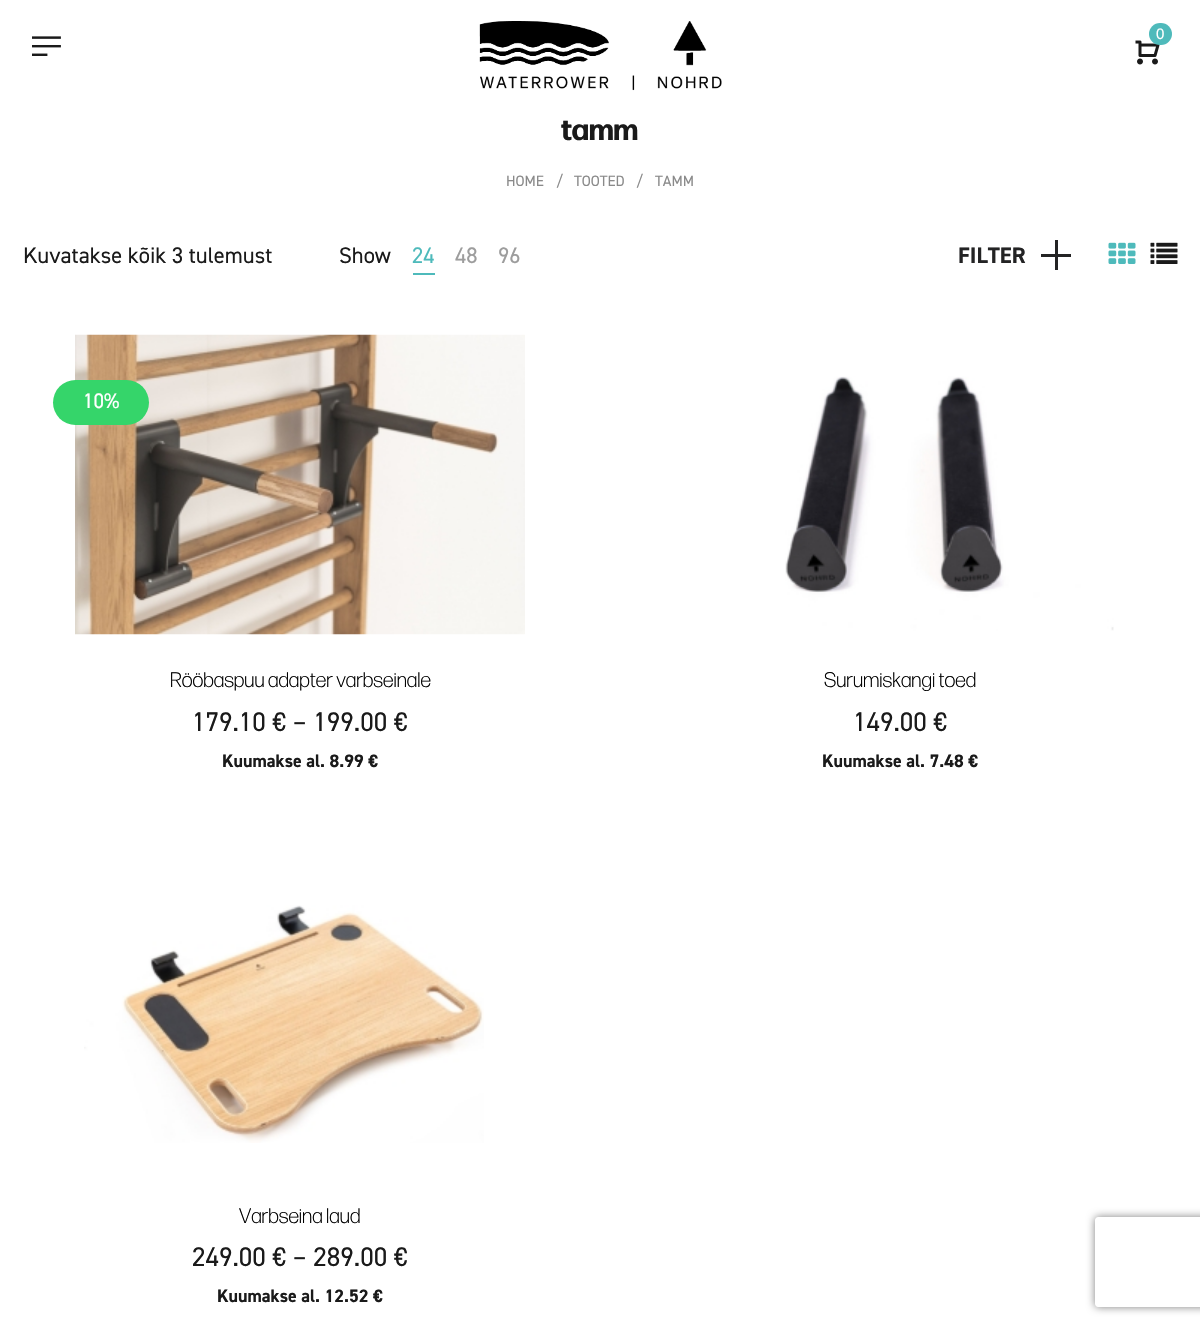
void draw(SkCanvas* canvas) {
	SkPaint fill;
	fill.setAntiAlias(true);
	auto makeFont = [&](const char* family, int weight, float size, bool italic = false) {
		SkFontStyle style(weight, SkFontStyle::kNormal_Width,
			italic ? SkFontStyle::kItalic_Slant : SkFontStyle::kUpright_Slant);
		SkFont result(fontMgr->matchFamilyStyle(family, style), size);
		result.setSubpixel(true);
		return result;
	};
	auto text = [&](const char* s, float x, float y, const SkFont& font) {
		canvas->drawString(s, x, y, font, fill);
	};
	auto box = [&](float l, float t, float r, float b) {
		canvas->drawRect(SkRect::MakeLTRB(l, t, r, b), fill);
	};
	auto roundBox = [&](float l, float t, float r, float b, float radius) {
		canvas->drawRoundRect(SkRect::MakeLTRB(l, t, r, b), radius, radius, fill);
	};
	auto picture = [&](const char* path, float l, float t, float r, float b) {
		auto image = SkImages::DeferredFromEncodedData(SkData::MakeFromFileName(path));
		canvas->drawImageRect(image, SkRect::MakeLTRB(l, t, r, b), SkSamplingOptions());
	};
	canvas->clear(0xFFFFFFFF);
	picture("image0.png", 479, 21, 722, 91);
	picture("image1.png", 1135, 40, 1160, 65);
	fill.setColor(0xFF4EBABB);
	roundBox(1149, 23, 1172, 45, 11);
	picture("image2.png", 32, 36, 61, 56);
	box(413, 273, 435, 275);
	fill.setColor(0xFF232324);
	box(1041, 254, 1071, 257);
	box(1055, 240, 1058, 270);
	picture("image3.png", 1108, 242, 1136, 264);
	picture("image4.png", 1150, 242, 1178, 264);
	picture("image5.png", 75, 334, 525, 635);
	fill.setColor(0xFF35D56A);
	roundBox(53, 380, 149, 425, 22.5f);
	picture("image6.png", 785, 376, 1114, 631);
	picture("image7.png", 84, 905, 484, 1143);
	canvas->save();
	canvas->clipPath(SkPathBuilder(SkPathFillType::kEvenOdd).moveTo(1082, 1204).lineTo(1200, 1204).lineTo(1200, 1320).lineTo(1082, 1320).close().moveTo(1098, 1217).lineTo(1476, 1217).cubicTo(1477.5f, 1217, 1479, 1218.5f, 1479, 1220).lineTo(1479, 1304).cubicTo(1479, 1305.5f, 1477.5f, 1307, 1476, 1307).lineTo(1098, 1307).cubicTo(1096.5f, 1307, 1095, 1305.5f, 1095, 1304).lineTo(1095, 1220).cubicTo(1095, 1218.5f, 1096.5f, 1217, 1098, 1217).close().detach(), true);
	fill.setColor(0xFF808080);
	fill.setMaskFilter(SkMaskFilter::MakeBlur(kNormal_SkBlurStyle, 4));
	canvas->drawRoundRect(SkRect::MakeLTRB(1095, 1217, 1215, 1307), 3, 3, fill);
	fill.setMaskFilter(nullptr);
	canvas->restore();
	auto font1 = makeFont("Liberation Sans", 400, 15);
	fill.setColor(0xFFFFFFFF);
	text("0", 1156, 39, font1);
	auto font2 = makeFont("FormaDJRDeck", 700, 30);
	fill.setColor(0xFF1A1A1A);
	text("tamm", 561, 140, font2);
	auto font3 = makeFont("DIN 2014", 400, 15);
	fill.setColor(0xFF8A8A8A);
	text("HOME", 506, 186, font3);
	text("/", 556, 186, font3);
	text("TOOTED", 574, 186, font3);
	text("/", 636, 186, font3);
	text("TAMM", 655, 186, font3);
	auto font4 = makeFont("DIN 2014", 400, 22.5f);
	fill.setColor(0xFF1A1A1A);
	text("Kuvatakse kõik 3 tulemust", 23, 263, font4);
	text("Show", 339, 263, font4);
	fill.setColor(0xFF4EBABB);
	text("24", 412, 263, font4);
	fill.setColor(0xFF9D9D9D);
	text("48", 455, 263, font4);
	text("96", 498, 263, font4);
	auto font5 = makeFont("DIN 2014", 700, 22.5f);
	fill.setColor(0xFF232324);
	text("FILTER", 958, 263, font5);
	auto font6 = makeFont("DIN 2014", 400, 21);
	fill.setColor(0xFFFFFFFF);
	text("10%", 83, 408, font6);
	auto font7 = makeFont("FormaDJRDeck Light", 300, 21);
	fill.setColor(0xFF000000);
	text("Rööbaspuu adapter varbseinale", 170, 687, font7);
	auto font8 = makeFont("DIN 2014", 400, 27);
	fill.setColor(0xFF1A1A1A);
	text("179.10 € – 199.00 €", 192, 731, font8);
	auto font9 = makeFont("DIN 2014", 700, 18);
	text("Kuumakse al. 8.99 €", 222, 767, font9);
	fill.setColor(0xFF000000);
	text("Surumiskangi toed", 824, 687, font7);
	fill.setColor(0xFF1A1A1A);
	text("149.00 €", 853, 731, font8);
	text("Kuumakse al. 7.48 €", 822, 767, font9);
	fill.setColor(0xFF000000);
	text("Varbseina laud", 239, 1223, font7);
	fill.setColor(0xFF1A1A1A);
	text("249.00 € – 289.00 €", 192, 1266, font8);
	text("Kuumakse al. 12.52 €", 217, 1302, font9);
}
